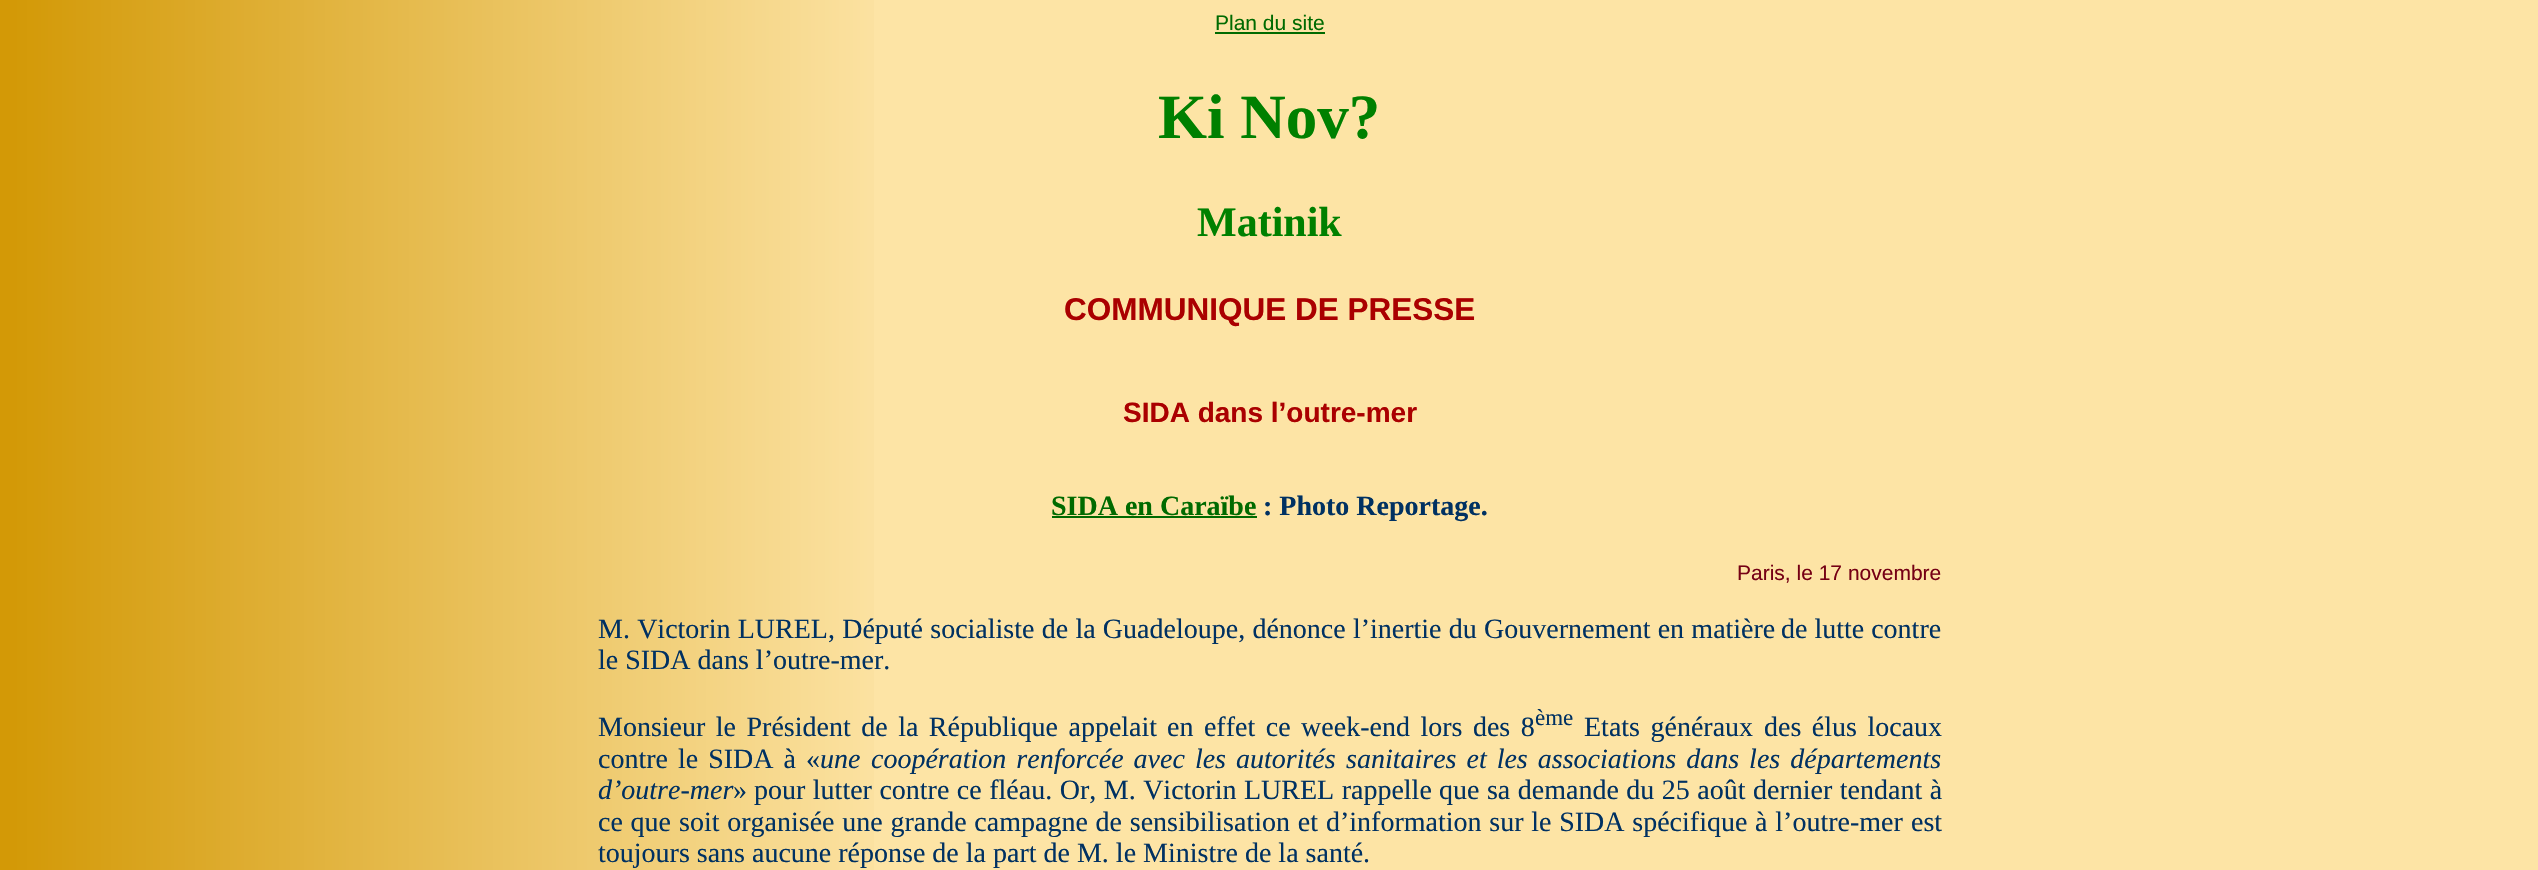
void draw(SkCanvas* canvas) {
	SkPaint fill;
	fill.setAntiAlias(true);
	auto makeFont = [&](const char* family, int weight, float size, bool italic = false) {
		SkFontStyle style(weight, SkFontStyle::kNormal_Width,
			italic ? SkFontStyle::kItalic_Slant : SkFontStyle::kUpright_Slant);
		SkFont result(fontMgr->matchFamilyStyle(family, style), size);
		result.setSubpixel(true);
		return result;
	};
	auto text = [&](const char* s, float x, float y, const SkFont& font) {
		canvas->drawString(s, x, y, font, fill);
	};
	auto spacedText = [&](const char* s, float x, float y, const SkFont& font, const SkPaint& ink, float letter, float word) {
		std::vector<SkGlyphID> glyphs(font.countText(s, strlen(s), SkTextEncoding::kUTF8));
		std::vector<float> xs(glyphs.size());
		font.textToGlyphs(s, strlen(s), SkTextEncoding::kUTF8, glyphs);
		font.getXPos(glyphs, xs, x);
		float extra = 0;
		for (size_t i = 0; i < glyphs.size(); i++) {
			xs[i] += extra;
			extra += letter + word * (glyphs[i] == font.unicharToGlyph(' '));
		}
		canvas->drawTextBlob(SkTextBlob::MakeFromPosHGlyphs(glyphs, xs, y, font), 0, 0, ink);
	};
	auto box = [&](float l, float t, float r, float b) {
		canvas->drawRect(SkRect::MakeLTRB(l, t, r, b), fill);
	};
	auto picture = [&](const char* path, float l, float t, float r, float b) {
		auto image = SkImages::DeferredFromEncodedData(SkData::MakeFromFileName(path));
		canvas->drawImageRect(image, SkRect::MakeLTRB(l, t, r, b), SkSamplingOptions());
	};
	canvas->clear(0xFFFDE4A5);
	picture("image0.png", 0, 0, 874, 870);
	fill.setColor(0xFF006A00);
	box(1215, 32, 1325, 34);
	box(1052, 516, 1257, 518);
	auto font1 = makeFont("Liberation Sans", 400, 21);
	text("Plan du site", 1215, 30, font1);
	auto font2 = makeFont("Liberation Serif", 700, 63);
	fill.setColor(0xFF008000);
	text("Ki Nov?", 1158, 138, font2);
	auto font3 = makeFont("Liberation Serif", 700, 42);
	text("Matinik", 1197, 236, font3);
	auto font4 = makeFont("Liberation Sans", 700, 31.5f);
	fill.setColor(0xFFAA0000);
	text("COMMUNIQUE DE PRESSE", 1064, 320, font4);
	auto font5 = makeFont("Liberation Sans", 700, 28);
	text("SIDA dans l’outre-mer", 1123, 422, font5);
	auto font6 = makeFont("Liberation Serif", 700, 28);
	fill.setColor(0xFF006A00);
	text("SIDA en Caraïbe", 1051, 515, font6);
	fill.setColor(0xFF003162);
	text(": Photo Reportage.", 1263, 515, font6);
	fill.setColor(0xFF750014);
	text("Paris, le 17 novembre", 1737, 580, font1);
	auto font7 = makeFont("Liberation Serif", 400, 28);
	fill.setColor(0xFF003162);
	spacedText("M. Victorin LUREL, Député socialiste de la Guadeloupe, dénonce l’inertie du Gouvernement en matière", 598, 638, font7, fill, 0, 0.25f);
	text("de lutte contre", 1781, 638, font7);
	text("le SIDA dans l’outre-mer.", 598, 669, font7);
	spacedText("Monsieur le Président de la République appelait", 598, 736, font7, fill, 0, 3.5f);
	spacedText("en effet ce week-end lors des 8", 1167, 736, font7, fill, 0, 3.5f);
	auto font8 = makeFont("Liberation Serif", 400, 23);
	text("ème", 1535, 725, font8);
	spacedText("Etats généraux", 1584, 736, font7, fill, 0, 3.5f);
	spacedText("des élus locaux", 1764, 736, font7, fill, 0, 3.5f);
	spacedText("contre le SIDA à «", 598, 768, font7, fill, 0, 3);
	auto font9 = makeFont("Liberation Serif", 400, 28, true);
	text("une", 820, 768, font9);
	spacedText("coopération renforcée avec les autorités", 871, 768, font9, fill, 0, 3);
	spacedText("sanitaires et les associations dans les départements", 1346, 768, font9, fill, 0, 3);
	text("d’outre-mer", 598, 799, font9);
	text("»", 733, 799, font7);
	spacedText("pour lutter contre ce fléau. Or, M. Victorin LUREL rappelle", 754, 799, font7, fill, 0, 0.5f);
	spacedText("que sa demande du 25 août dernier tendant à", 1439, 799, font7, fill, 0, 0.5f);
	spacedText("ce que", 598, 831, font7, fill, 0, 0.75f);
	spacedText("soit organisée une grande campagne de sensibilisation et", 679, 831, font7, fill, 0, 0.75f);
	spacedText("d’information sur le SIDA spécifique à l’outre-mer", 1326, 831, font7, fill, 0, 0.75f);
	text("est", 1911, 831, font7);
	text("toujours sans aucune réponse de la part de M. le Ministre de la santé.", 598, 862, font7);
}
